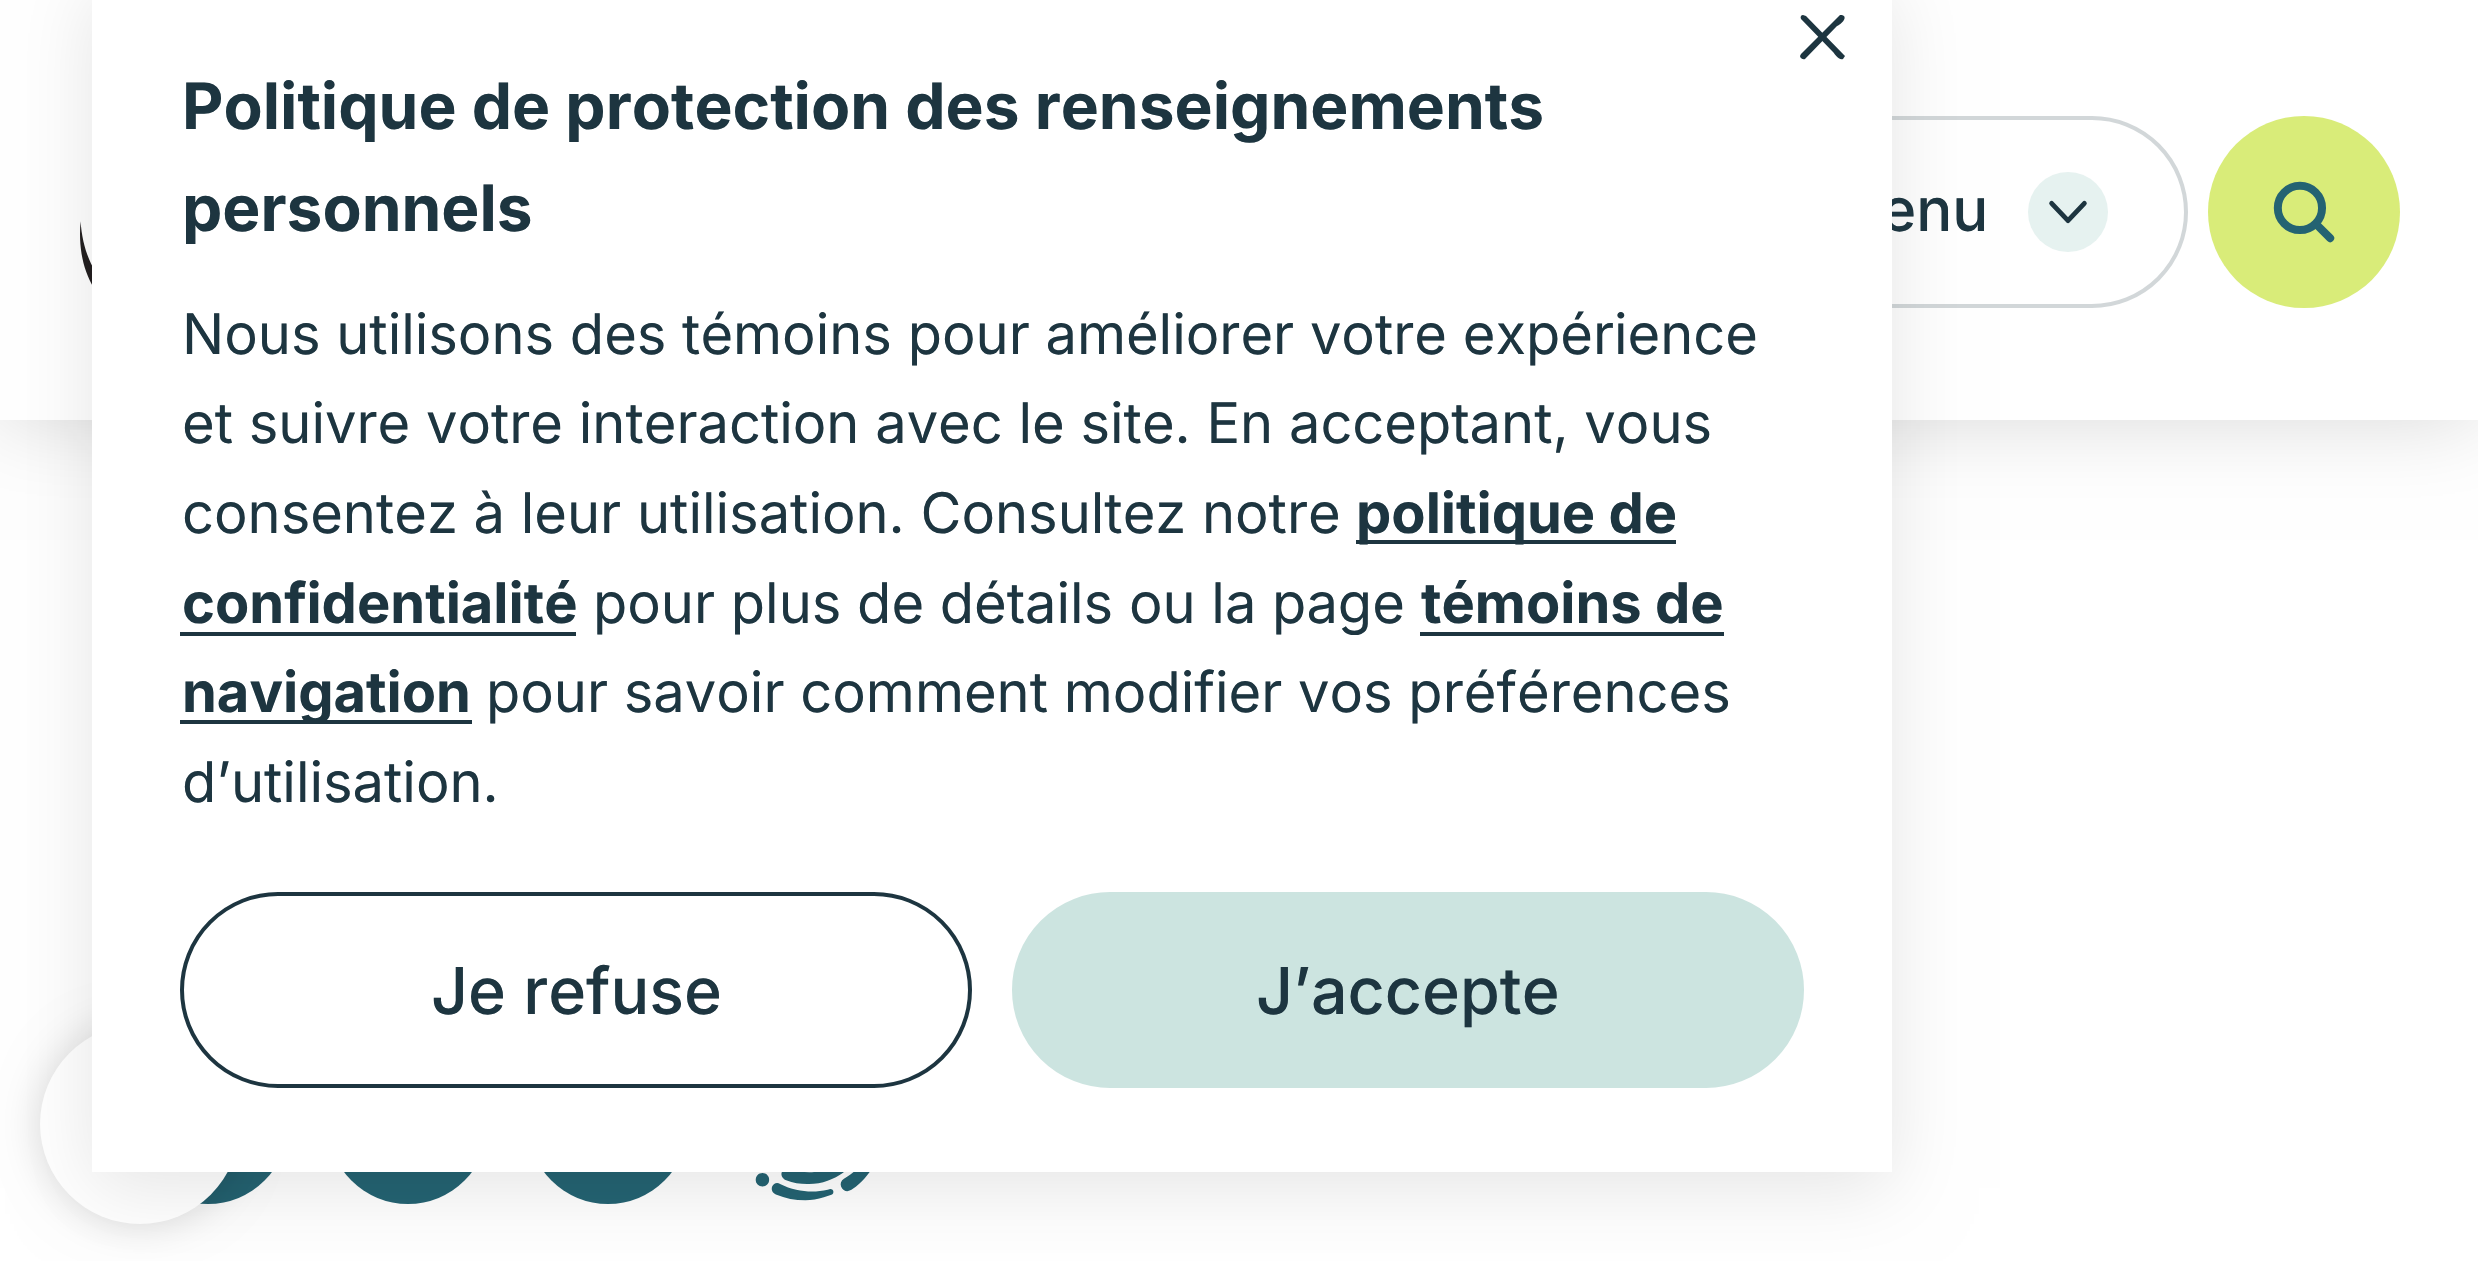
void draw(SkCanvas* canvas) {
	SkPaint fill;
	fill.setAntiAlias(true);
	auto makeFont = [&](const char* family, int weight, float size, bool italic = false) {
		SkFontStyle style(weight, SkFontStyle::kNormal_Width,
			italic ? SkFontStyle::kItalic_Slant : SkFontStyle::kUpright_Slant);
		SkFont result(fontMgr->matchFamilyStyle(family, style), size);
		result.setSubpixel(true);
		return result;
	};
	auto text = [&](const char* s, float x, float y, const SkFont& font) {
		canvas->drawString(s, x, y, font, fill);
	};
	auto box = [&](float l, float t, float r, float b) {
		canvas->drawRect(SkRect::MakeLTRB(l, t, r, b), fill);
	};
	auto picture = [&](const char* path, float l, float t, float r, float b) {
		auto image = SkImages::DeferredFromEncodedData(SkData::MakeFromFileName(path));
		canvas->drawImageRect(image, SkRect::MakeLTRB(l, t, r, b), SkSamplingOptions());
	};
	canvas->clear(0xFFFFFFFF);
	fill.setColor(0x26000000);
	fill.setMaskFilter(SkMaskFilter::MakeBlur(kNormal_SkBlurStyle, 40));
	canvas->drawRect(SkRect::MakeLTRB(0, 0, 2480, 420), fill);
	fill.setMaskFilter(nullptr);
	fill.setColor(0xFFFFFFFF);
	box(0, 0, 2478, 420);
	fill.setStyle(SkPaint::kStroke_Style);
	fill.setStrokeWidth(4);
	fill.setColor(0xFFD2D7D9);
	canvas->drawRoundRect(SkRect::MakeLTRB(1746, 118, 2186, 306), 94, 94, fill);
	picture("image2.png", 80, 221, 92, 285);
	fill.setStyle(SkPaint::kFill_Style);
	fill.setColor(0xFF246372);
	canvas->drawCircle(208, 1124, 80, fill);
	fill.setColor(0x26000000);
	fill.setMaskFilter(SkMaskFilter::MakeBlur(kNormal_SkBlurStyle, 20));
	canvas->drawRoundRect(SkRect::MakeLTRB(40, 1024, 240, 1224), 100, 100, fill);
	fill.setMaskFilter(nullptr);
	fill.setColor(0xFFFFFFFF);
	canvas->drawCircle(140, 1124, 100, fill);
	fill.setColor(0xFF246372);
	canvas->drawCircle(408, 1124, 80, fill);
	canvas->drawCircle(608, 1124, 80, fill);
	picture("image3.png", 755, 1172, 870, 1201);
	fill.setColor(0x1A000000);
	fill.setMaskFilter(SkMaskFilter::MakeBlur(kNormal_SkBlurStyle, 36));
	canvas->drawRect(SkRect::MakeLTRB(92, -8, 1892, 1188), fill);
	fill.setMaskFilter(nullptr);
	fill.setColor(0xFFE6F2F0);
	canvas->drawCircle(2068, 212, 40, fill);
	picture("image0.png", 2049, 200, 2087, 224);
	fill.setColor(0xFFD9EC79);
	canvas->drawCircle(2304, 212, 96, fill);
	picture("image1.png", 2273, 181, 2335, 243);
	auto font1 = makeFont("Inter", 500, 60);
	fill.setColor(0xFF1D3540);
	text("enu", 1881, 231, font1);
	fill.setColor(0xFFFFFFFF);
	box(92, 0, 1892, 1172);
	fill.setColor(0xFFCCE4E0);
	canvas->drawRoundRect(SkRect::MakeLTRB(1014, 894, 1802, 1086), 96, 96, fill);
	fill.setStyle(SkPaint::kStroke_Style);
	canvas->drawRoundRect(SkRect::MakeLTRB(1014, 894, 1802, 1086), 96, 96, fill);
	auto font2 = makeFont("Inter", 500, 64.5f);
	fill.setStyle(SkPaint::kFill_Style);
	fill.setColor(0xFF1D3540);
	text("J’accepte", 1256, 1014, font2);
	fill.setStyle(SkPaint::kStroke_Style);
	canvas->drawRoundRect(SkRect::MakeLTRB(182, 894, 970, 1086), 96, 96, fill);
	fill.setStyle(SkPaint::kFill_Style);
	text("Je refuse", 431, 1014, font2);
	canvas->drawPath(SkPathBuilder().moveTo(1806, 16).lineTo(1844, 55).lineTo(1845, 56).lineTo(1843, 59).cubicTo(1839, 61, 1834, 53, 1833, 52).lineTo(1801, 19).cubicTo(1800, 17, 1801, 15, 1803, 15).close().detach(), fill);
	canvas->drawPath(SkPathBuilder().moveTo(1801, 54).lineTo(1840, 15).lineTo(1842, 15).lineTo(1844, 16).cubicTo(1847, 20, 1838, 26, 1837, 26).lineTo(1805, 59).cubicTo(1803, 60, 1800, 58, 1800, 56).close().detach(), fill);
	auto font3 = makeFont("Inter", 400, 56);
	text("d’utilisation.", 182, 802, font3);
	text("pour savoir comment modifier vos préférences", 486, 712, font3);
	box(180, 720, 472, 724);
	auto font4 = makeFont("Inter", 700, 56);
	text("navigation", 182, 712, font4);
	text("témoins de", 1421, 623, font4);
	box(1420, 632, 1724, 636);
	text("pour plus de détails ou la page", 593, 623, font3);
	text("confidentialité", 182, 623, font4);
	box(1356, 540, 1676, 544);
	text("politique de", 1356, 533, font4);
	box(180, 632, 576, 636);
	text("consentez à leur utilisation. Consultez notre", 182, 533, font3);
	text("et suivre votre interaction avec le site. En acceptant, vous", 182, 443, font3);
	text("Nous utilisons des témoins pour améliorer votre expérience", 182, 354, font3);
	auto font5 = makeFont("Inter", 700, 64);
	text("personnels", 182, 231, font5);
	text("Politique de protection des renseignements", 182, 129, font5);
}
